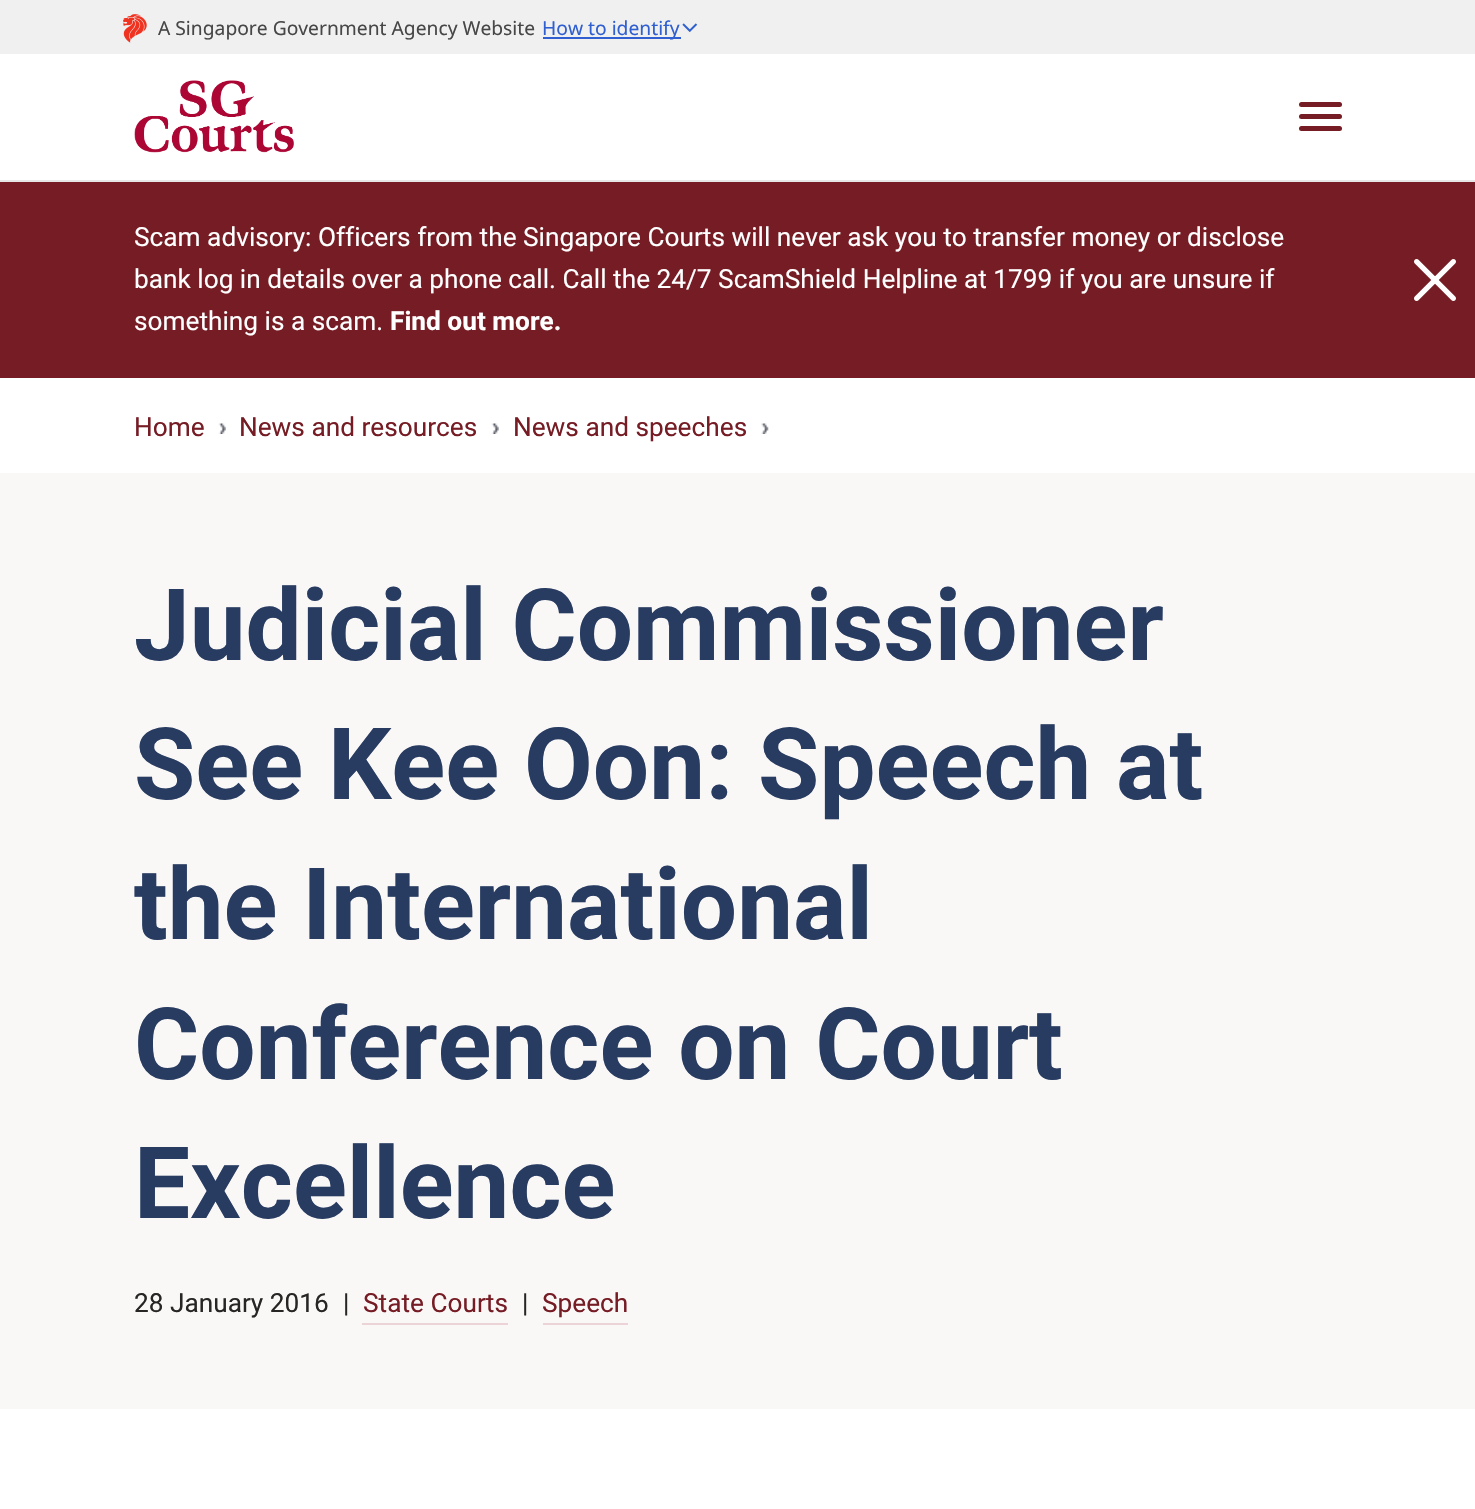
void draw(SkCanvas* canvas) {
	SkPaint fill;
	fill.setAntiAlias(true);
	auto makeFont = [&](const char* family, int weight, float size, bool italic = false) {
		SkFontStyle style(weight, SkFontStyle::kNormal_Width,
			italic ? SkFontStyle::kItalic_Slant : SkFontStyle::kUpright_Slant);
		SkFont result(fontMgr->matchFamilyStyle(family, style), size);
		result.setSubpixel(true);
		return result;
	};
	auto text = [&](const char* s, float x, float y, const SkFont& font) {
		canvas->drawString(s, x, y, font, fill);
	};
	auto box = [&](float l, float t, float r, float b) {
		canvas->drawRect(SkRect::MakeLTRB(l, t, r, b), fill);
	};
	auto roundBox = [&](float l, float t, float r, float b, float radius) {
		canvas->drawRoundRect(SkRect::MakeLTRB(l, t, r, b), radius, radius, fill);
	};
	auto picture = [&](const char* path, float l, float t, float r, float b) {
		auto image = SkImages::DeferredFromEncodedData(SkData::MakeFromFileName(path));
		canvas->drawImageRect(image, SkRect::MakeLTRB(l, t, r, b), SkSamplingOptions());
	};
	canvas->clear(0xFFFFFFFF);
	fill.setColor(0xFFF0F0F0);
	box(0, 0, 1475, 54);
	picture("image0.png", 123, 14, 147, 43);
	fill.setColor(0xFF2F5FD0);
	box(543, 37, 681, 39);
	picture("image1.png", 682, 23, 698, 33);
	fill.setColor(0xFFE6E6E6);
	box(0, 180, 1475, 182);
	picture("image2.png", 134, 80, 294, 153);
	fill.setColor(0xFF751C24);
	roundBox(1299, 102, 1342, 107, 2.5f);
	roundBox(1299, 114, 1342, 119, 2.5f);
	roundBox(1299, 126, 1342, 131, 2.5f);
	box(0, 182, 1475, 378);
	picture("image3.png", 1414, 259, 1456, 301);
	picture("image4.png", 218, 423, 226, 434);
	picture("image5.png", 491, 423, 499, 434);
	picture("image6.png", 761, 423, 769, 434);
	fill.setColor(0xFFFAF7F7);
	box(0, 473, 1475, 1409);
	fill.setColor(0xFFEBD3D7);
	box(362, 1323, 508, 1325);
	box(543, 1323, 628, 1325);
	auto font1 = makeFont("Noto Sans", 400, 19.25f);
	fill.setColor(0xFF474747);
	text("A Singapore Government Agency Website", 158, 35, font1);
	fill.setColor(0xFF2F5FD0);
	text("How to identify", 542, 35, font1);
	auto font2 = makeFont("Roboto", 400, 26.25f);
	fill.setColor(0xFFFFFFFF);
	text("Scam advisory: Officers from the Singapore Courts will never ask you to transfer money or disclose", 134, 246, font2);
	text("bank log in details over a phone call. Call the 24/7 ScamShield Helpline at 1799 if you are unsure if", 134, 288, font2);
	text("something is a scam.", 134, 330, font2);
	auto font3 = makeFont("Roboto", 700, 26.25f);
	text("Find out more.", 390, 330, font3);
	fill.setColor(0xFF751C24);
	text("Home", 134, 436, font2);
	text("News and resources", 239, 436, font2);
	text("News and speeches", 513, 436, font2);
	auto font4 = makeFont("Roboto", 700, 99.75f);
	fill.setColor(0xFF283C61);
	text("Judicial Commissioner", 134, 660, font4);
	text("See Kee Oon: Speech at", 134, 799, font4);
	text("the International", 134, 939, font4);
	text("Conference on Court", 134, 1079, font4);
	text("Excellence", 134, 1218, font4);
	fill.setColor(0xFF282624);
	text("28 January 2016", 134, 1312, font2);
	text("|", 343, 1312, font2);
	fill.setColor(0xFF751C24);
	text("State Courts", 363, 1312, font2);
	fill.setColor(0xFF282624);
	text("|", 522, 1312, font2);
	fill.setColor(0xFF751C24);
	text("Speech", 542, 1312, font2);
}
